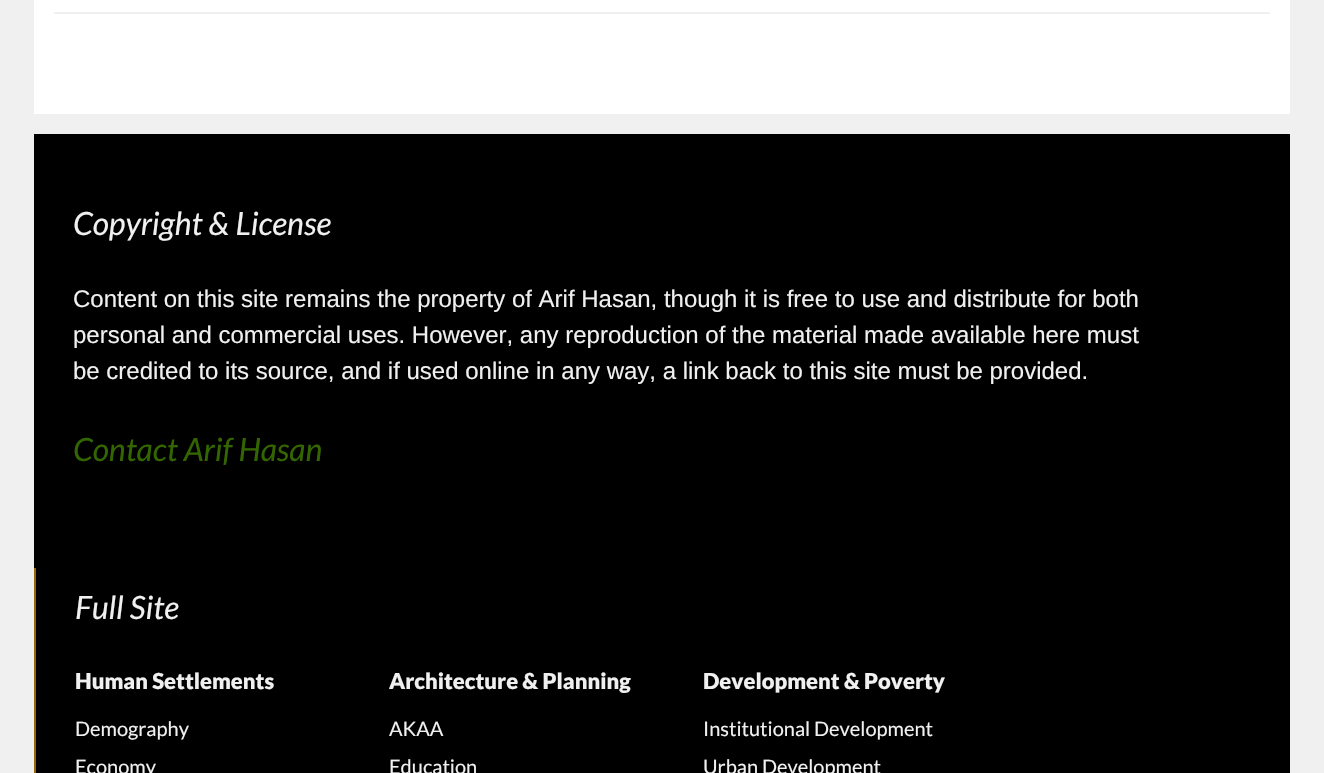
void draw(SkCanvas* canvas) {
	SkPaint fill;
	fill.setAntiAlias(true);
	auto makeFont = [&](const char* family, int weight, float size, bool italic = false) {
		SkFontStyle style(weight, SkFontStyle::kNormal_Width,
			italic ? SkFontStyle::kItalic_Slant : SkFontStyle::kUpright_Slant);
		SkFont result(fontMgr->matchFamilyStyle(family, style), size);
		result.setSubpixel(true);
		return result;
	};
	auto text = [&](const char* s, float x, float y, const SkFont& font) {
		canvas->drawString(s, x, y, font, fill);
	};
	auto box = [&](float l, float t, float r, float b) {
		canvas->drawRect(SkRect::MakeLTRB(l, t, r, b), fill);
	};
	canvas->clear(0xFFF0F0F0);
	fill.setColor(0xFFFFFFFF);
	box(34, 0, 1290, 114);
	fill.setColor(0xFFF0F0F0);
	box(54, 12, 1270, 14);
	fill.setColor(0xFF000000);
	box(34, 134, 1290, 773);
	fill.setColor(0xFF996600);
	box(34, 568, 36, 773);
	auto font1 = makeFont("Lato", 400, 32, true);
	fill.setColor(0xFFF0F0F0);
	text("Copyright & License", 73, 235, font1);
	auto font2 = makeFont("Liberation Sans", 400, 24);
	text("Content on this site remains the property of Arif Hasan, though it is free to use and distribute for both", 73, 307, font2);
	text("personal and commercial uses. However, any reproduction of the material made available here must", 73, 343, font2);
	text("be credited to its source, and if used online in any way, a link back to this site must be provided.", 73, 379, font2);
	fill.setColor(0xFF336600);
	text("Contact Arif Hasan", 73, 461, font1);
	fill.setColor(0xFFF0F0F0);
	text("Full Site", 75, 619, font1);
	auto font3 = makeFont("Lato", 900, 22);
	text("Human Settlements", 75, 689, font3);
	auto font4 = makeFont("Lato", 400, 20);
	text("Demography", 75, 736, font4);
	text("Economy", 75, 774, font4);
	text("Architecture & Planning", 389, 689, font3);
	text("AKAA", 389, 736, font4);
	text("Education", 389, 774, font4);
	text("Development & Poverty", 703, 689, font3);
	text("Institutional Development", 703, 736, font4);
	text("Urban Development", 703, 774, font4);
}
